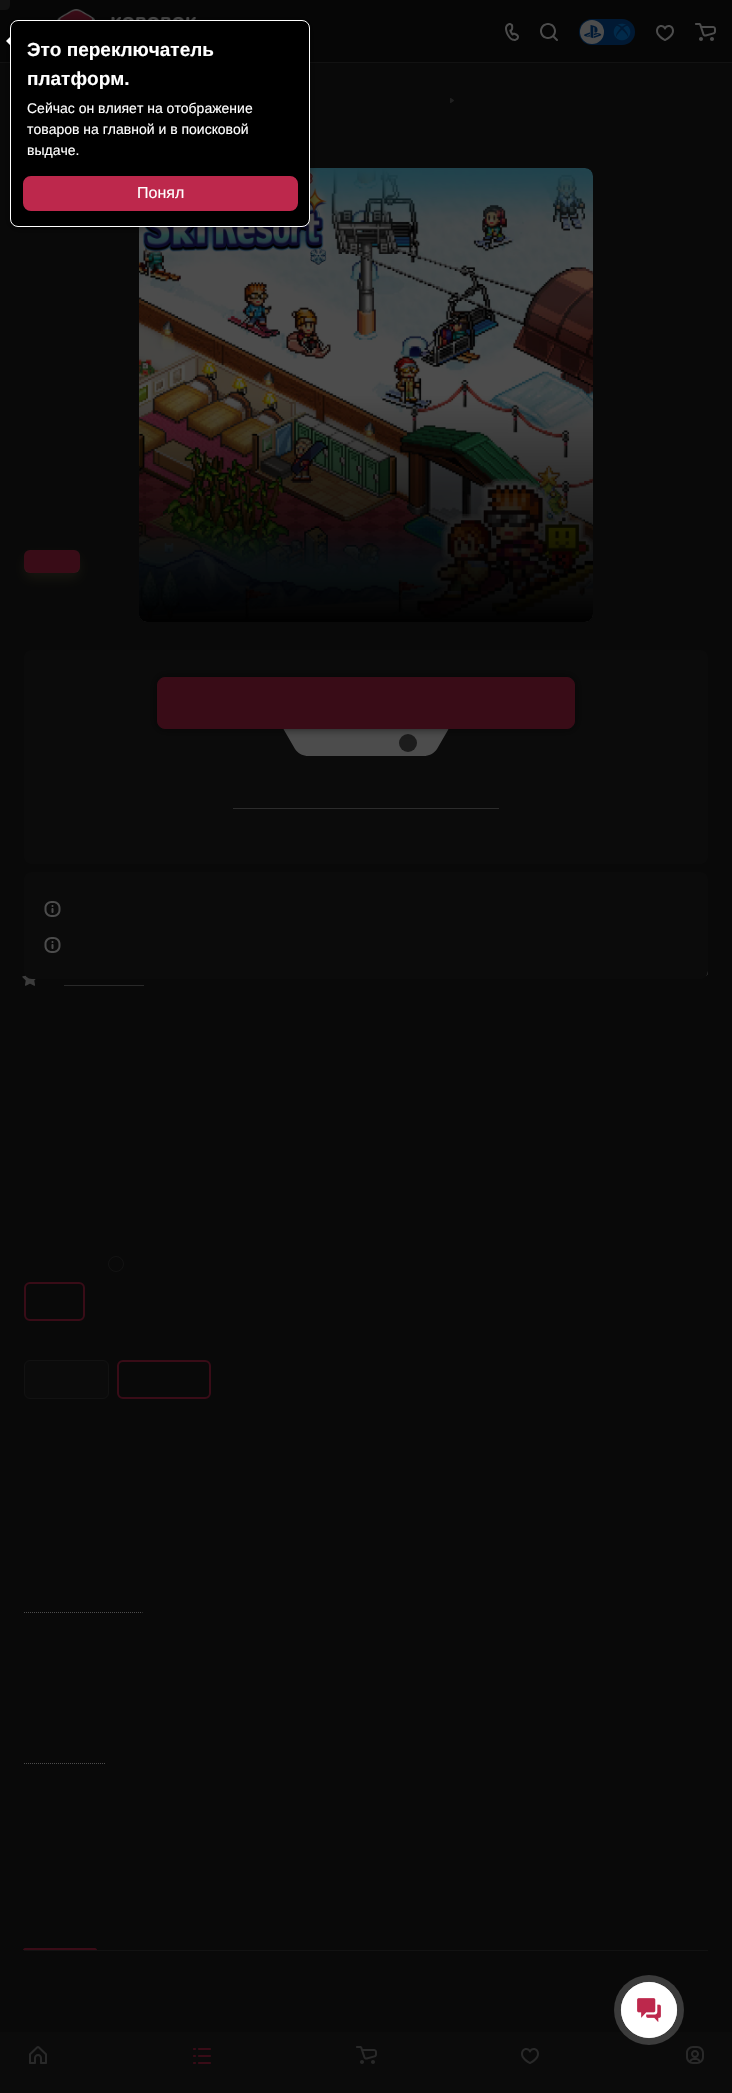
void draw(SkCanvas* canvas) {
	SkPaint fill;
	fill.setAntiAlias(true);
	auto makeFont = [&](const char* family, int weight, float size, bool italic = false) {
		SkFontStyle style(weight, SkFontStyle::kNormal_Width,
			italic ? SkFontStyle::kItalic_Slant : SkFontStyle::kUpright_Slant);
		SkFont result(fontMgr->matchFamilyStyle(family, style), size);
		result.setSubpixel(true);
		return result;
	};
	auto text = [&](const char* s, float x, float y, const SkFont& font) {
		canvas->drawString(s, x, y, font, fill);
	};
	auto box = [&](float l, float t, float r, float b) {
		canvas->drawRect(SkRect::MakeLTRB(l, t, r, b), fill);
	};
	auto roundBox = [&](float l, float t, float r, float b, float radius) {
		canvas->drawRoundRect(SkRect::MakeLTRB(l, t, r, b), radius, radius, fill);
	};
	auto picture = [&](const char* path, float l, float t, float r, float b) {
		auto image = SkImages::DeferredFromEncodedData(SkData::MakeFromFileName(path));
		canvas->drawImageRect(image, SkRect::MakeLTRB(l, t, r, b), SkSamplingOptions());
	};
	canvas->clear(0xFF1B1B1B);
	fill.setColor(0xFF3A3A3A);
	box(0, 62, 732, 63);
	fill.setColor(0xFF121212);
	box(0, 0, 732, 62);
	picture("image0.png", 57, 9, 196, 20);
	picture("image1.png", 505, 23, 519, 41);
	picture("image2.png", 540, 23, 558, 41);
	fill.setColor(0xFF0153AB);
	roundBox(579, 19, 635, 45, 13);
	fill.setColor(0xFFFFFFFF);
	canvas->drawCircle(592, 32, 12, fill);
	picture("image3.png", 584, 24, 602, 39);
	picture("image4.png", 613, 23, 631, 41);
	picture("image5.png", 656, 25, 674, 41);
	picture("image6.png", 695, 23, 716, 41);
	picture("image7.png", 450, 98, 454, 103);
	picture("image8.png", 139, 168, 593, 622);
	{
		const SkColor colors[] = {0x00000000, 0xFF000000};
		const float stops[] = {0, 1};
		const SkPoint ends[] = {{366, 395}, {366, 622}};
		fill.setShader(SkGradientShader::MakeLinear(ends, colors, stops, 2, SkTileMode::kClamp));
		fill.setAlpha(255);
	}
	canvas->drawPath(SkPathBuilder().moveTo(139, 395).lineTo(593, 395).lineTo(593, 614).cubicTo(593, 618.5f, 589.5f, 622, 585, 622).lineTo(147, 622).cubicTo(142.5f, 622, 139, 618.5f, 139, 614).close().detach(), fill);
	fill.setShader(nullptr);
	fill.setColor(0xFFBD284C);
	roundBox(24, 550, 80, 573, 6);
	canvas->save();
	canvas->clipPath(SkPathBuilder(SkPathFillType::kEvenOdd).moveTo(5, 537).lineTo(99, 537).lineTo(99, 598).lineTo(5, 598).close().moveTo(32, 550).lineTo(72, 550).cubicTo(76.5f, 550, 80, 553.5f, 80, 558).lineTo(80, 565).cubicTo(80, 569.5f, 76.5f, 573, 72, 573).lineTo(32, 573).cubicTo(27.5f, 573, 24, 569.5f, 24, 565).lineTo(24, 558).cubicTo(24, 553.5f, 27.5f, 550, 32, 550).close().detach(), true);
	fill.setColor(0x33FFEB81);
	fill.setMaskFilter(SkMaskFilter::MakeBlur(kNormal_SkBlurStyle, 6));
	canvas->drawRoundRect(SkRect::MakeLTRB(24, 556, 80, 579), 8, 8, fill);
	fill.setMaskFilter(nullptr);
	canvas->restore();
	fill.setColor(0xFF232323);
	roundBox(24, 650, 708, 864, 8);
	fill.setColor(0xFFFFFFFF);
	box(306, 729, 426, 756);
	canvas->drawPath(SkPathBuilder().moveTo(327, 705).lineTo(338, 724).cubicTo(342, 730, 340, 739, 333, 743).lineTo(314, 754).cubicTo(307, 758, 299, 755, 295, 749).lineTo(284, 730).cubicTo(280, 723, 282, 714, 289, 711).lineTo(308, 700).cubicTo(315, 696, 323, 698, 327, 705).close().detach(), fill);
	canvas->drawPath(SkPathBuilder().moveTo(424, 700).lineTo(443, 711).cubicTo(450, 714, 452, 723, 448, 730).lineTo(437, 749).cubicTo(433, 755, 425, 758, 418, 754).lineTo(399, 743).cubicTo(392, 739, 390, 730, 394, 724).lineTo(405, 705).cubicTo(409, 698, 417, 696, 424, 700).close().detach(), fill);
	fill.setColor(0xFF5B5B5B);
	canvas->drawCircle(408, 743, 9, fill);
	fill.setColor(0x99000000);
	fill.setMaskFilter(SkMaskFilter::MakeBlur(kNormal_SkBlurStyle, 5));
	canvas->drawRoundRect(SkRect::MakeLTRB(157, 677, 575, 729), 8, 8, fill);
	fill.setMaskFilter(nullptr);
	fill.setColor(0xFFBD284C);
	canvas->drawRoundRect(SkRect::MakeLTRB(157.5f, 677.5f, 574.5f, 728.5f), 7.5f, 7.5f, fill);
	fill.setStyle(SkPaint::kStroke_Style);
	fill.setStrokeWidth(1);
	canvas->drawRoundRect(SkRect::MakeLTRB(157.5f, 677.5f, 574.5f, 728.5f), 7.5f, 7.5f, fill);
	fill.setStyle(SkPaint::kFill_Style);
	fill.setColor(0xFF919191);
	box(233, 808, 499, 809);
	picture("image10.png", 706, 971, 708, 976);
	picture("image11.png", 22, 975, 36, 986);
	fill.setStyle(SkPaint::kStroke_Style);
	fill.setColor(0xFFFFFFFF);
	fill.setPathEffect(SkDashPathEffect::Make({{1, 1}}, 0));
	canvas->drawPath(SkPathBuilder().moveTo(64.5f, 985.5f).lineTo(144, 985.5f).detach(), fill);
	fill.setPathEffect(nullptr);
	fill.setStyle(SkPaint::kFill_Style);
	fill.setColor(0x1A222222);
	fill.setMaskFilter(SkMaskFilter::MakeBlur(kNormal_SkBlurStyle, 10));
	canvas->drawRoundRect(SkRect::MakeLTRB(24, 875, 708, 982), 8, 8, fill);
	fill.setMaskFilter(nullptr);
	fill.setColor(0xFF232323);
	roundBox(24, 872, 708, 979, 8);
	picture("image9.png", 44, 901, 61, 917);
	picture("image9.png", 44, 937, 61, 953);
	fill.setStyle(SkPaint::kStroke_Style);
	fill.setColor(0xFF3A3A3A);
	canvas->drawCircle(116, 1264, 7.5f, fill);
	fill.setStrokeWidth(2);
	fill.setColor(0xFFBD284C);
	canvas->drawRoundRect(SkRect::MakeLTRB(25, 1283, 84, 1320), 5, 5, fill);
	fill.setStyle(SkPaint::kFill_Style);
	fill.setColor(0xFF232323);
	canvas->drawRoundRect(SkRect::MakeLTRB(24.5f, 1360.5f, 108.5f, 1398.5f), 5.5f, 5.5f, fill);
	fill.setStyle(SkPaint::kStroke_Style);
	fill.setStrokeWidth(1);
	fill.setColor(0xFF3A3A3A);
	canvas->drawRoundRect(SkRect::MakeLTRB(24.5f, 1360.5f, 108.5f, 1398.5f), 5.5f, 5.5f, fill);
	fill.setStrokeWidth(2);
	fill.setColor(0xFFBD284C);
	canvas->drawRoundRect(SkRect::MakeLTRB(118, 1361, 210, 1398), 5, 5, fill);
	fill.setStrokeWidth(1);
	fill.setColor(0xFFFFFFFF);
	fill.setPathEffect(SkDashPathEffect::Make({{1, 1}}, 0));
	canvas->drawPath(SkPathBuilder().moveTo(24, 1612.5f).lineTo(142.5f, 1612.5f).detach(), fill);
	fill.setPathEffect(nullptr);
	fill.setPathEffect(SkDashPathEffect::Make({{1, 1}}, 0));
	canvas->drawPath(SkPathBuilder().moveTo(24, 1763.5f).lineTo(105, 1763.5f).detach(), fill);
	fill.setPathEffect(nullptr);
	fill.setStyle(SkPaint::kFill_Style);
	fill.setColor(0xFF3A3A3A);
	box(24, 1950, 708, 1951);
	fill.setColor(0xFFBD284C);
	canvas->drawPath(SkPathBuilder().moveTo(25, 1948).lineTo(95, 1948).cubicTo(96, 1948, 97, 1949, 97, 1950).lineTo(23, 1950).cubicTo(23, 1949, 24, 1948, 25, 1948).close().detach(), fill);
	fill.setColor(0xFF232323);
	box(0, 2032, 732, 2093);
	picture("image13.png", 29, 2046, 47, 2064);
	picture("image14.png", 193, 2048, 211, 2064);
	picture("image15.png", 356, 2046, 377, 2064);
	picture("image16.png", 521, 2048, 539, 2064);
	picture("image17.png", 686, 2046, 704, 2064);
	fill.setColor(0xB3000000);
	canvas->drawPath(SkPathBuilder(SkPathFillType::kEvenOdd).moveTo(732, 0).lineTo(0, 0).lineTo(0, 2093).lineTo(732, 2093).close().moveTo(-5, -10).lineTo(7, -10).cubicTo(11, -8, 10, -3, 10, 0).cubicTo(10, 4, 11, 10, 5, 10).lineTo(-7, 10).cubicTo(-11, 8, -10, 3, -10, 0).cubicTo(-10, -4, -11, -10, -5, -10).close().detach(), fill);
	fill.setColor(0x66000000);
	fill.setMaskFilter(SkMaskFilter::MakeBlur(kNormal_SkBlurStyle, 5));
	canvas->drawRoundRect(SkRect::MakeLTRB(10, 21, 310, 228), 8, 8, fill);
	fill.setMaskFilter(nullptr);
	fill.setColor(0xFF000000);
	canvas->drawRoundRect(SkRect::MakeLTRB(10.5f, 20.5f, 309.5f, 226.5f), 7.5f, 7.5f, fill);
	fill.setStyle(SkPaint::kStroke_Style);
	fill.setColor(0xFFFFFFFF);
	canvas->drawRoundRect(SkRect::MakeLTRB(10.5f, 20.5f, 309.5f, 226.5f), 7.5f, 7.5f, fill);
	fill.setStyle(SkPaint::kFill_Style);
	canvas->drawPath(SkPathBuilder().moveTo(11, 36).lineTo(11, 46).lineTo(6, 41).close().detach(), fill);
	fill.setColor(0xFFBD284C);
	canvas->drawRoundRect(SkRect::MakeLTRB(24, 177, 297, 210), 7, 7, fill);
	fill.setStyle(SkPaint::kStroke_Style);
	fill.setStrokeWidth(2);
	canvas->drawRoundRect(SkRect::MakeLTRB(24, 177, 297, 210), 7, 7, fill);
	fill.setStyle(SkPaint::kFill_Style);
	fill.setColor(0x33FFFFFF);
	canvas->drawCircle(649, 2010, 35, fill);
	fill.setStyle(SkPaint::kStroke_Style);
	fill.setStrokeWidth(0.8f);
	fill.setColor(0xFFFFFFFF);
	canvas->drawCircle(649, 2010, 27.6f, fill);
	fill.setStyle(SkPaint::kFill_Style);
	canvas->drawCircle(649, 2010, 28, fill);
	picture("image12.png", 637, 1998, 661, 2022);
	auto font1 = makeFont("Liberation Sans", 700, 19);
	text("Это переключатель", 27, 56, font1);
	text("платформ.", 27, 85, font1);
	auto font2 = makeFont("Liberation Sans", 400, 14);
	text("Сейчас он влияет на отображение", 27, 113, font2);
	text("товаров на главной и в поисковой", 27, 134, font2);
	text("выдаче.", 27, 155, font2);
	auto font3 = makeFont("Liberation Sans", 400, 16);
	text("Понял", 137, 198, font3);
}
